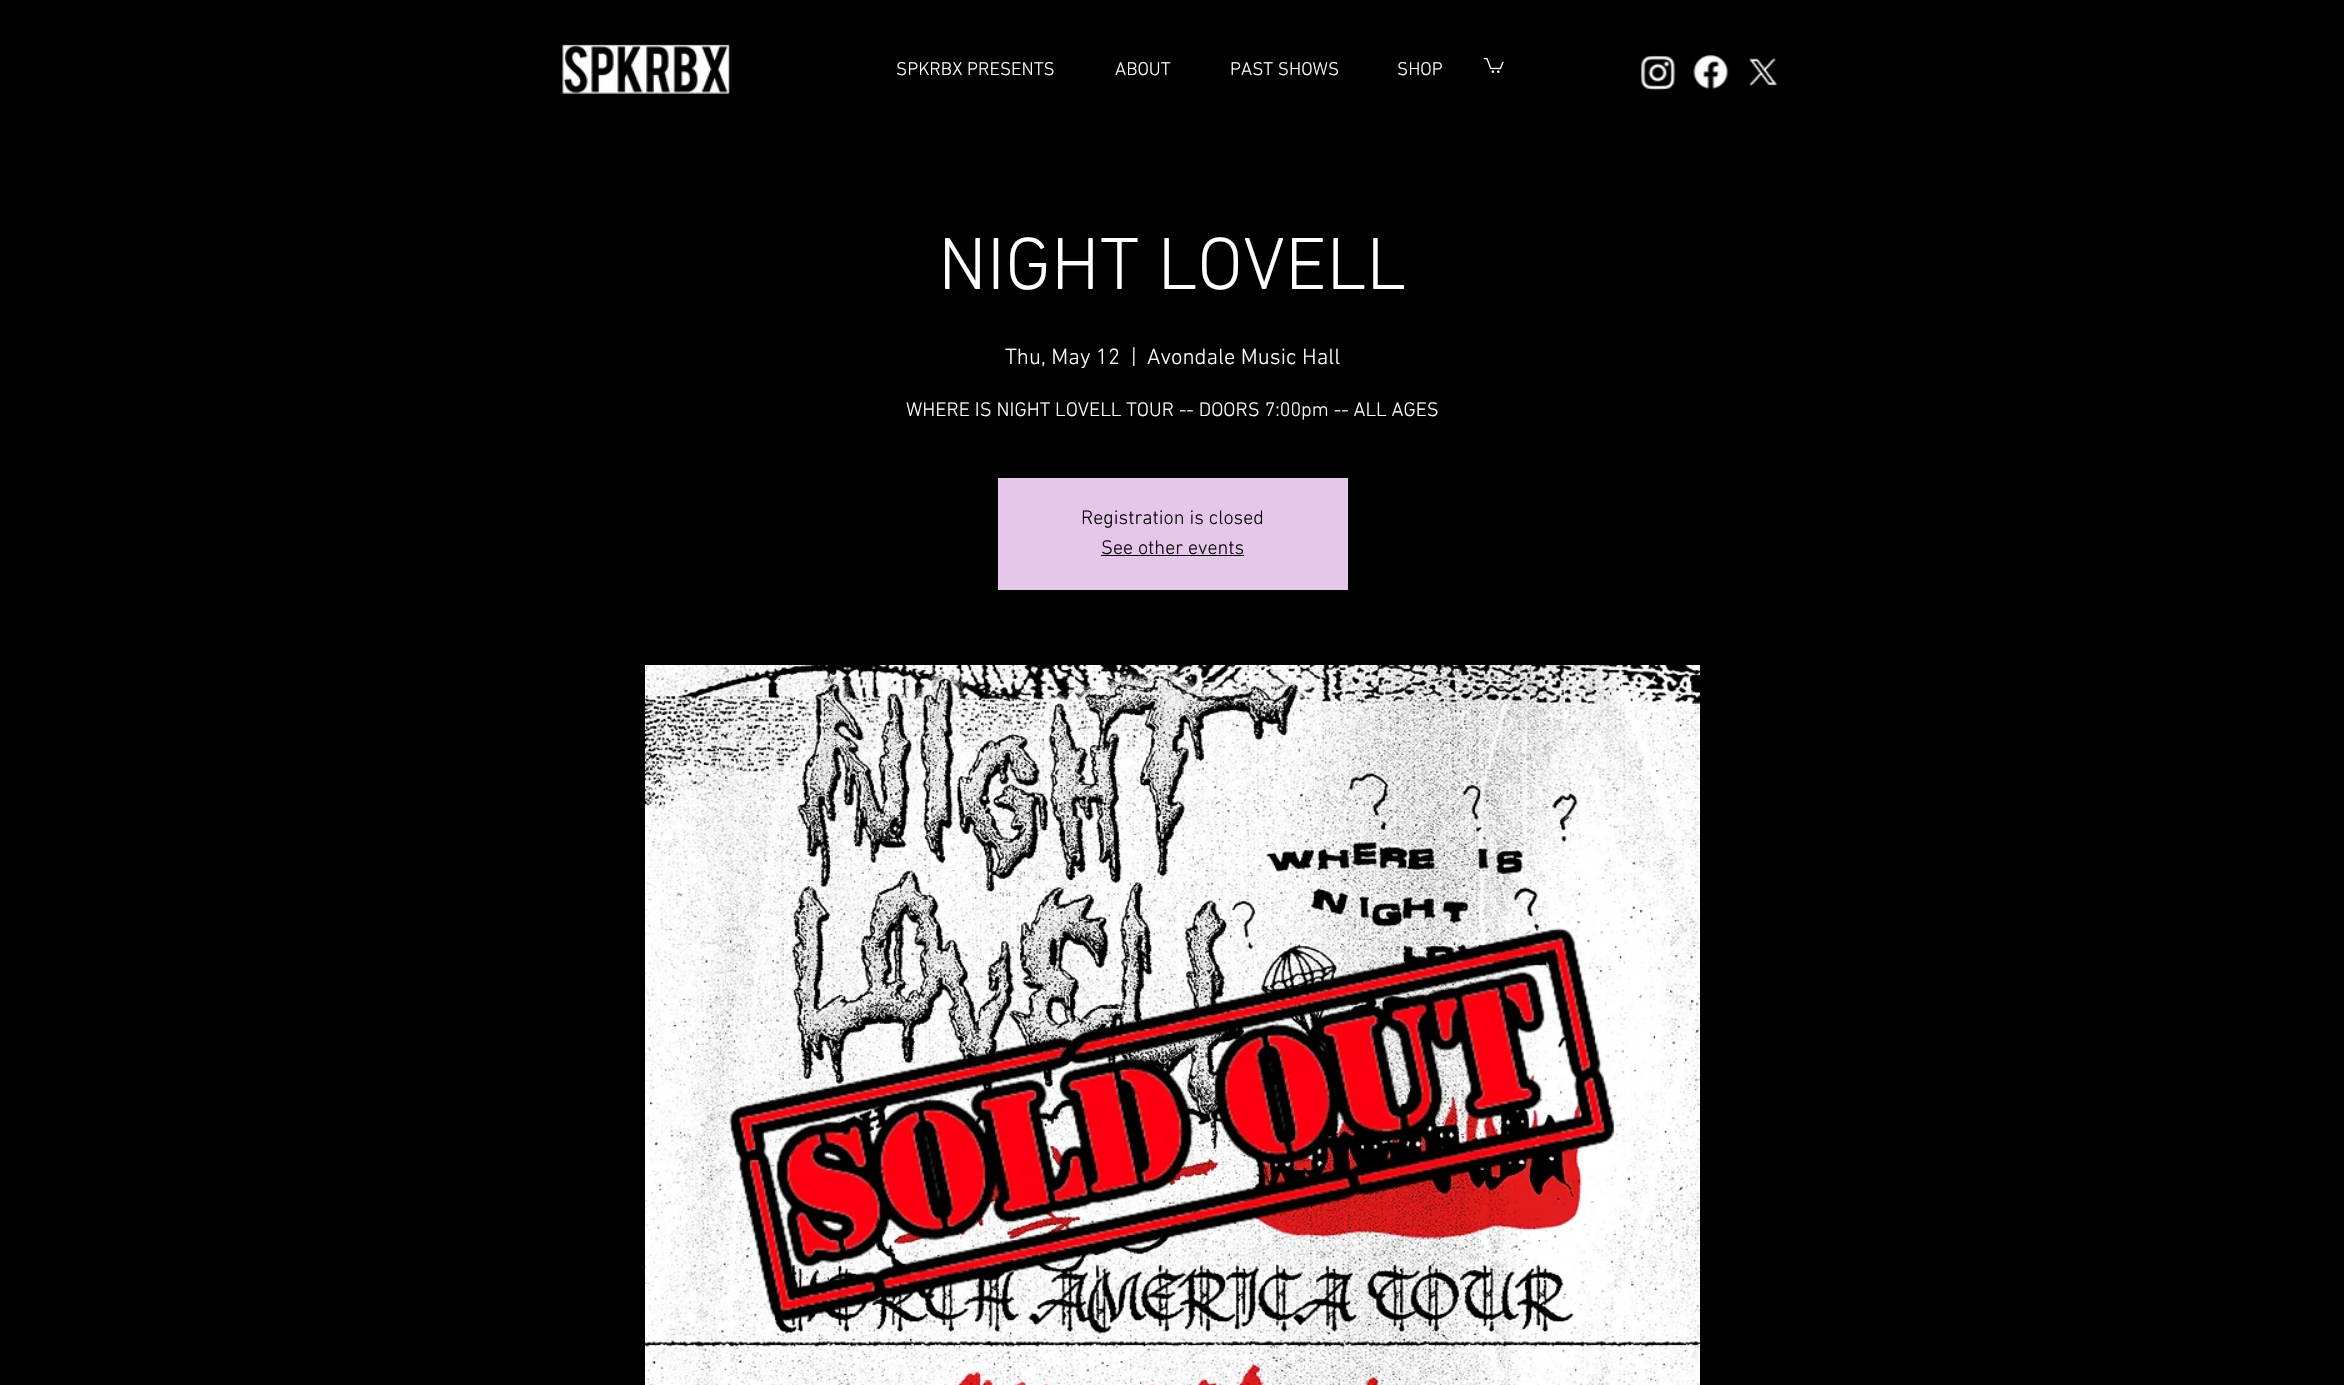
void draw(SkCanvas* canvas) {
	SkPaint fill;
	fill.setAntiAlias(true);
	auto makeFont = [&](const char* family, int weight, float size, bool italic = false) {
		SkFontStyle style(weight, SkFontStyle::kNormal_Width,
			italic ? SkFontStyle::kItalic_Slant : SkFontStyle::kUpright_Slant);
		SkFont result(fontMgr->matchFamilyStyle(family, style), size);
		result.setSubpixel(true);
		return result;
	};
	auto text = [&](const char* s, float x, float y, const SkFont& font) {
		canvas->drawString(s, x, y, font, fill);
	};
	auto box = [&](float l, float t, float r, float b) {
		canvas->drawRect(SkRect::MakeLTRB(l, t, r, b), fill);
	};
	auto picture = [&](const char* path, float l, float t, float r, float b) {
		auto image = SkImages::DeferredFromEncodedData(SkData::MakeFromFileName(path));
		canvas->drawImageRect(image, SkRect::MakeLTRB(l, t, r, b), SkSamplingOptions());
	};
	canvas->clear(0xFF000000);
	picture("image0.png", 562, 44, 730, 94);
	picture("image1.png", 1483, 57, 1504, 73);
	picture("image2.png", 1640, 55, 1676, 91);
	picture("image3.png", 1693, 54, 1729, 89);
	picture("image4.png", 1749, 58, 1778, 86);
	fill.setColor(0xFFE6C7EB);
	box(998, 478, 1348, 590);
	fill.setColor(0xFF000000);
	box(1101, 555, 1244, 556);
	picture("image5.png", 645, 665, 1700, 1385);
	auto font1 = makeFont("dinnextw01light", 300, 18.75f);
	fill.setColor(0xFFFFFFFF);
	text("SPKRBX PRESENTS", 896, 75, font1);
	text("ABOUT", 1115, 75, font1);
	text("PAST SHOWS", 1230, 75, font1);
	text("SHOP", 1397, 75, font1);
	auto font2 = makeFont("dinnextw01light", 300, 75);
	text("NIGHT LOVELL", 938, 289, font2);
	auto font3 = makeFont("dinnextw01light", 300, 22.5f);
	text("Thu, May 12", 1005, 364, font3);
	text("|", 1131, 364, font3);
	text("Avondale Music Hall", 1147, 364, font3);
	auto font4 = makeFont("dinnextw01light", 300, 20);
	text("WHERE IS NIGHT LOVELL TOUR -- DOORS 7:00pm -- ALL AGES", 906, 416, font4);
	fill.setColor(0xFF000000);
	text("Registration is closed", 1081, 524, font4);
	text("See other events", 1101, 554, font4);
}
